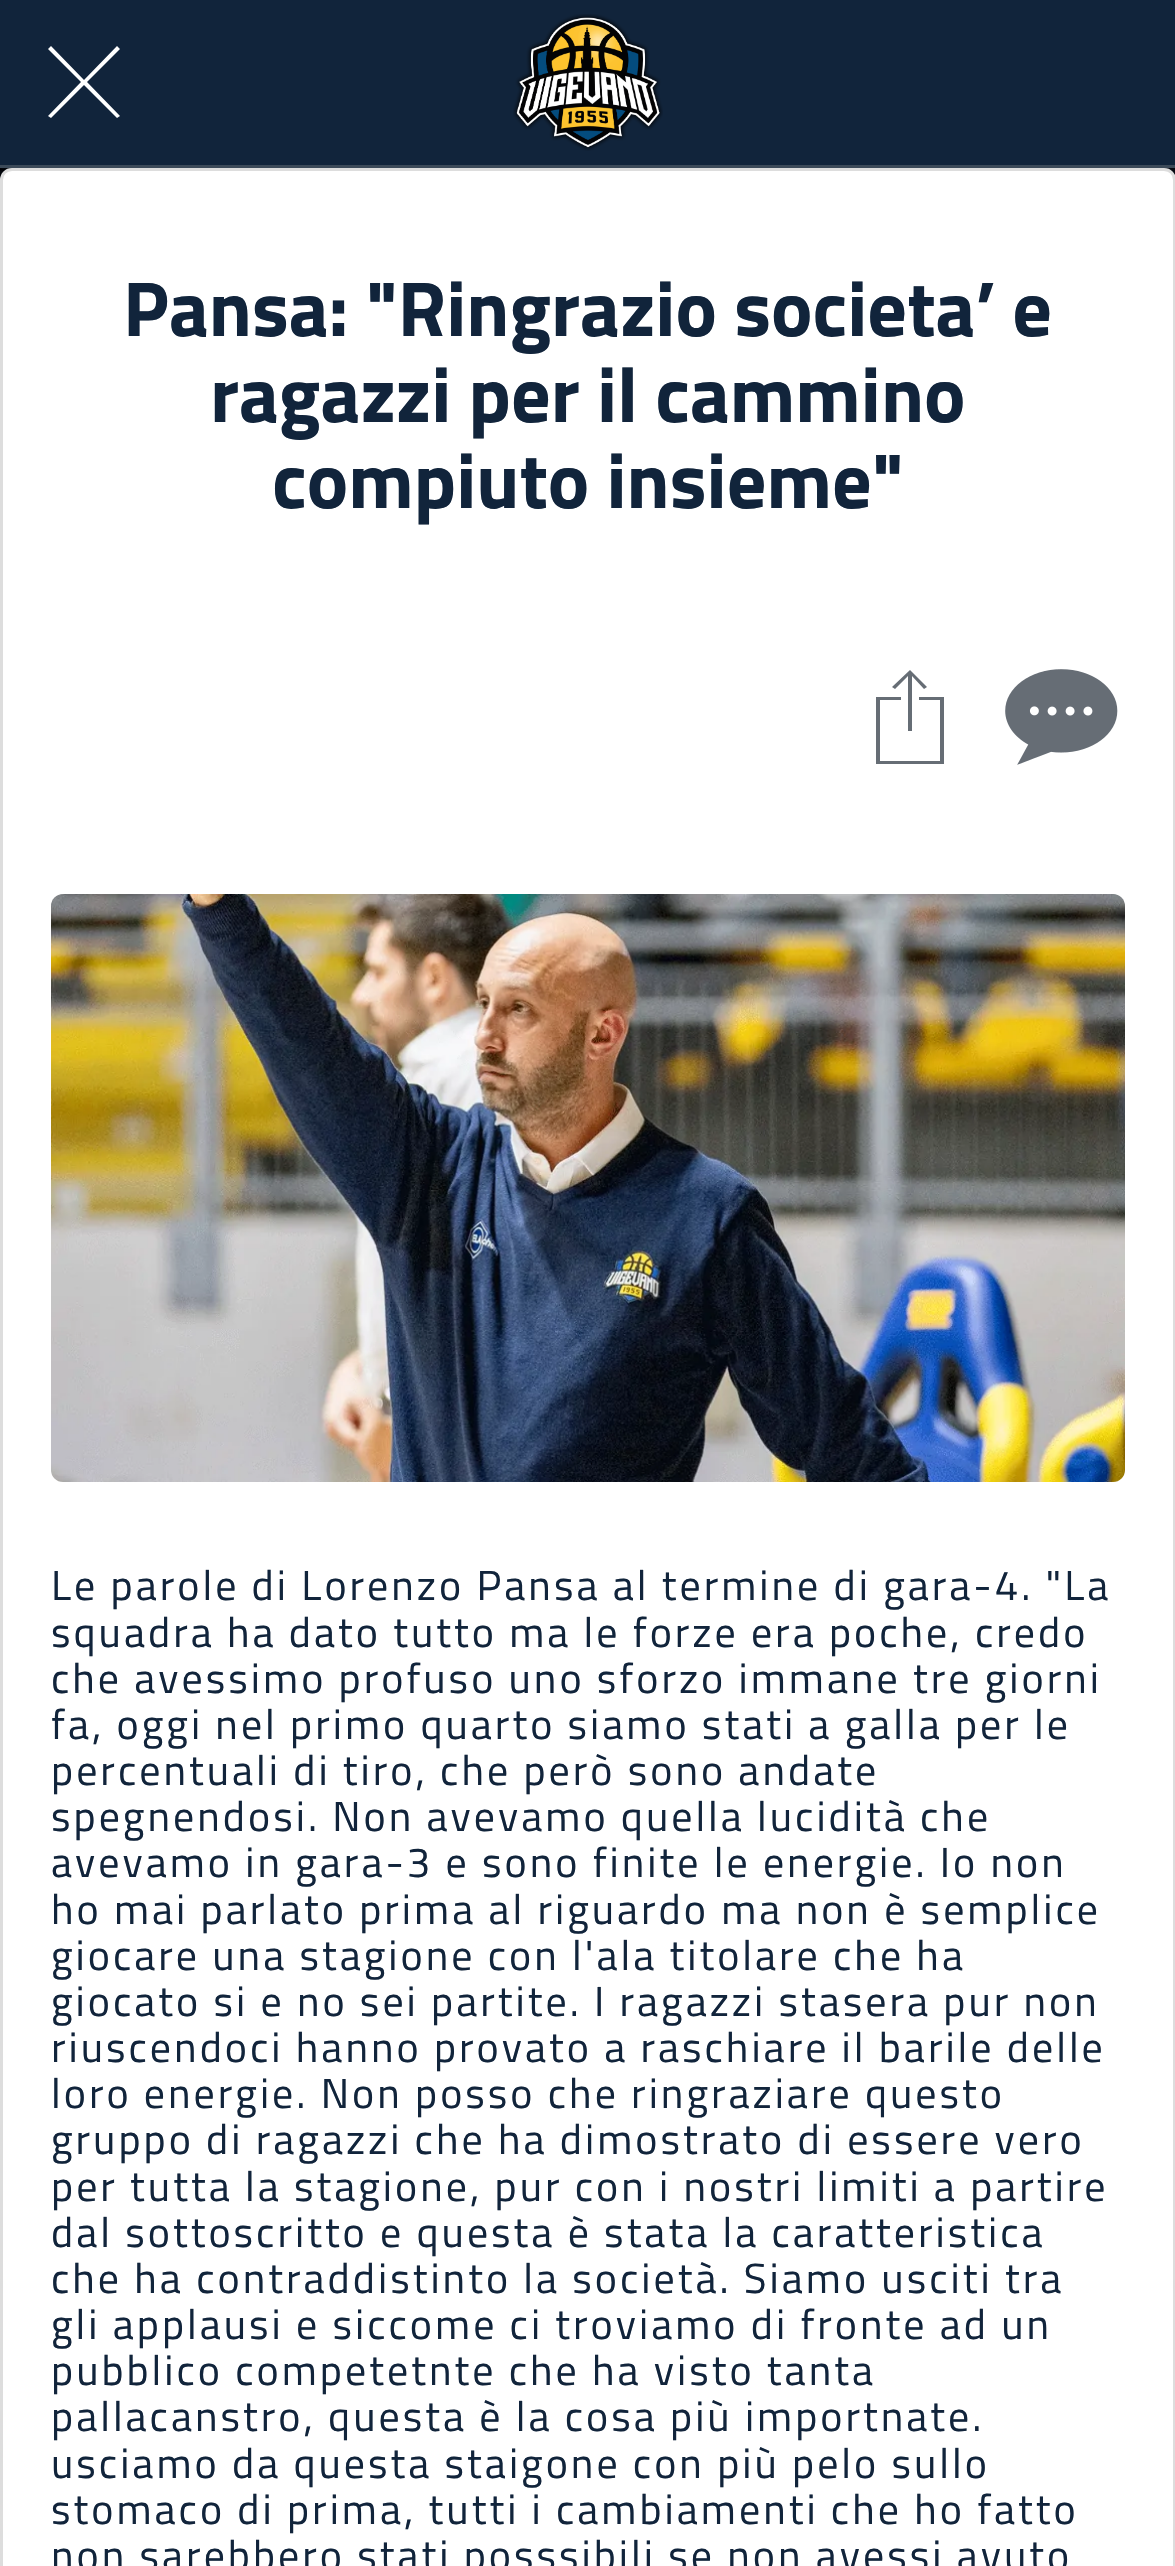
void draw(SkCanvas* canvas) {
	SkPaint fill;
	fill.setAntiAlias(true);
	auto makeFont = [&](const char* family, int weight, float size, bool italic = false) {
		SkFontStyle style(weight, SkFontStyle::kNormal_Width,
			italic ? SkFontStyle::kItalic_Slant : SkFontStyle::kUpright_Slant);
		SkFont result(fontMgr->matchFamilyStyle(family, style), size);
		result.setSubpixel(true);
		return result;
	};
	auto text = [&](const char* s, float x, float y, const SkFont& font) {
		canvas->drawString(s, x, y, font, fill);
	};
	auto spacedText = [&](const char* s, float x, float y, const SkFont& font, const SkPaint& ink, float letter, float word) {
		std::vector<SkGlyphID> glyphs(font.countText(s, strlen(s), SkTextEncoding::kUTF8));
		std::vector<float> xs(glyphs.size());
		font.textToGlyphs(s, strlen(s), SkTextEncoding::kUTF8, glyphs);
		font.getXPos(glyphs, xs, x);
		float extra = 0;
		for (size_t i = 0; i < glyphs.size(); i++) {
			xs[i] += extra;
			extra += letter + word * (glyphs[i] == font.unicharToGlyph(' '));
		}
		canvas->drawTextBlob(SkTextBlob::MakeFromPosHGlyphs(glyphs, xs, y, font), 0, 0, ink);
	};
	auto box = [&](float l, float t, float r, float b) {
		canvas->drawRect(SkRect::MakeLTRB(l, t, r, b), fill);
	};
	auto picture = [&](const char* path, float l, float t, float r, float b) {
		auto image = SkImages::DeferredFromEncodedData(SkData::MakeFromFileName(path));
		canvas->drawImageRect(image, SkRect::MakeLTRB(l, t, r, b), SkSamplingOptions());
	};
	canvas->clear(0xFFFFFFFF);
	picture("image0.png", 0, 168, 1175, 180);
	fill.setColor(0xFF11243B);
	box(0, 0, 1175, 165);
	fill.setColor(0xFF3C4A59);
	box(0, 165, 1175, 168);
	fill.setColor(0xFFFFFFFF);
	canvas->drawPath(SkPathBuilder().moveTo(120, 49).lineTo(117, 46).lineTo(84, 80).lineTo(51, 46).lineTo(48, 49).lineTo(81, 82).lineTo(48, 116).lineTo(51, 118).lineTo(84, 85).lineTo(117, 118).lineTo(120, 116).lineTo(87, 82).close().detach(), fill);
	picture("image1.png", 513, 14, 663, 151);
	canvas->drawPath(SkPathBuilder().moveTo(12, 169.5f).lineTo(1164, 169.5f).cubicTo(1170, 169.5f, 1174.5f, 174, 1174.5f, 180).lineTo(1174.5f, 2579.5f).lineTo(1.5f, 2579.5f).lineTo(1.5f, 180).cubicTo(1.5f, 174, 6, 169.5f, 12, 169.5f).close().detach(), fill);
	fill.setStyle(SkPaint::kStroke_Style);
	fill.setStrokeWidth(3);
	fill.setColor(0xFFDDDDDD);
	canvas->drawPath(SkPathBuilder().moveTo(12, 169.5f).lineTo(1164, 169.5f).cubicTo(1170, 169.5f, 1174.5f, 174, 1174.5f, 180).lineTo(1174.5f, 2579.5f).lineTo(1.5f, 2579.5f).lineTo(1.5f, 180).cubicTo(1.5f, 174, 6, 169.5f, 12, 169.5f).close().detach(), fill);
	fill.setStyle(SkPaint::kFill_Style);
	fill.setColor(0xFF666D75);
	canvas->drawPath(SkPathBuilder().moveTo(919, 697).lineTo(919, 700).lineTo(940, 700).lineTo(940, 761).lineTo(880, 761).lineTo(880, 700).lineTo(901, 700).lineTo(901, 697).lineTo(876, 697).lineTo(876, 764).lineTo(944, 764).lineTo(944, 697).close().moveTo(908, 676).lineTo(908, 731).lineTo(912, 731).lineTo(912, 676).lineTo(924, 689).lineTo(927, 687).lineTo(910, 670).lineTo(892, 687).lineTo(895, 689).close().detach(), fill);
	picture("image2.png", 1005, 669, 1118, 765);
	picture("image3.png", 51, 894, 1125, 1482);
	auto font1 = makeFont("Titillium Web", 700, 78);
	fill.setColor(0xFF11243B);
	text("Pansa: \"Ringrazio societa’ e", 123, 336, font1);
	text("ragazzi per il cammino", 210, 422, font1);
	text("compiuto insieme\"", 272, 508, font1);
	auto font2 = makeFont("Titillium Web", 400, 42);
	spacedText("Le parole di Lorenzo Pansa al termine di gara-4. \"La", 51, 1600, font2, fill, 3, 0);
	spacedText("squadra ha dato tutto ma le forze era poche, credo", 51, 1647, font2, fill, 3, 0);
	spacedText("che avessimo profuso uno sforzo immane tre giorni", 51, 1693, font2, fill, 3, 0);
	spacedText("fa, oggi nel primo quarto siamo stati a galla per le", 51, 1739, font2, fill, 3, 0);
	spacedText("percentuali di tiro, che però sono andate", 51, 1785, font2, fill, 3, 0);
	spacedText("spegnendosi. Non avevamo quella lucidità che", 51, 1831, font2, fill, 3, 0);
	spacedText("avevamo in gara-3 e sono finite le energie. Io non", 51, 1877, font2, fill, 3, 0);
	spacedText("ho mai parlato prima al riguardo ma non è semplice", 51, 1924, font2, fill, 3, 0);
	spacedText("giocare una stagione con l'ala titolare che ha", 51, 1970, font2, fill, 3, 0);
	spacedText("giocato si e no sei partite. I ragazzi stasera pur non", 51, 2016, font2, fill, 3, 0);
	spacedText("riuscendoci hanno provato a raschiare il barile delle", 51, 2062, font2, fill, 3, 0);
	spacedText("loro energie. Non posso che ringraziare questo", 51, 2108, font2, fill, 3, 0);
	spacedText("gruppo di ragazzi che ha dimostrato di essere vero", 51, 2154, font2, fill, 3, 0);
	spacedText("per tutta la stagione, pur con i nostri limiti a partire", 51, 2201, font2, fill, 3, 0);
	spacedText("dal sottoscritto e questa è stata la caratteristica", 51, 2247, font2, fill, 3, 0);
	spacedText("che ha contraddistinto la società. Siamo usciti tra", 51, 2293, font2, fill, 3, 0);
	spacedText("gli applausi e siccome ci troviamo di fronte ad un", 51, 2339, font2, fill, 3, 0);
	spacedText("pubblico competetnte che ha visto tanta", 51, 2385, font2, fill, 3, 0);
	spacedText("pallacanstro, questa è la cosa più importnate.", 51, 2431, font2, fill, 3, 0);
	spacedText("usciamo da questa staigone con più pelo sullo", 51, 2478, font2, fill, 3, 0);
	spacedText("stomaco di prima, tutti i cambiamenti che ho fatto", 51, 2524, font2, fill, 3, 0);
	spacedText("non sarebbero stati posssibili se non avessi avuto", 51, 2570, font2, fill, 3, 0);
}
